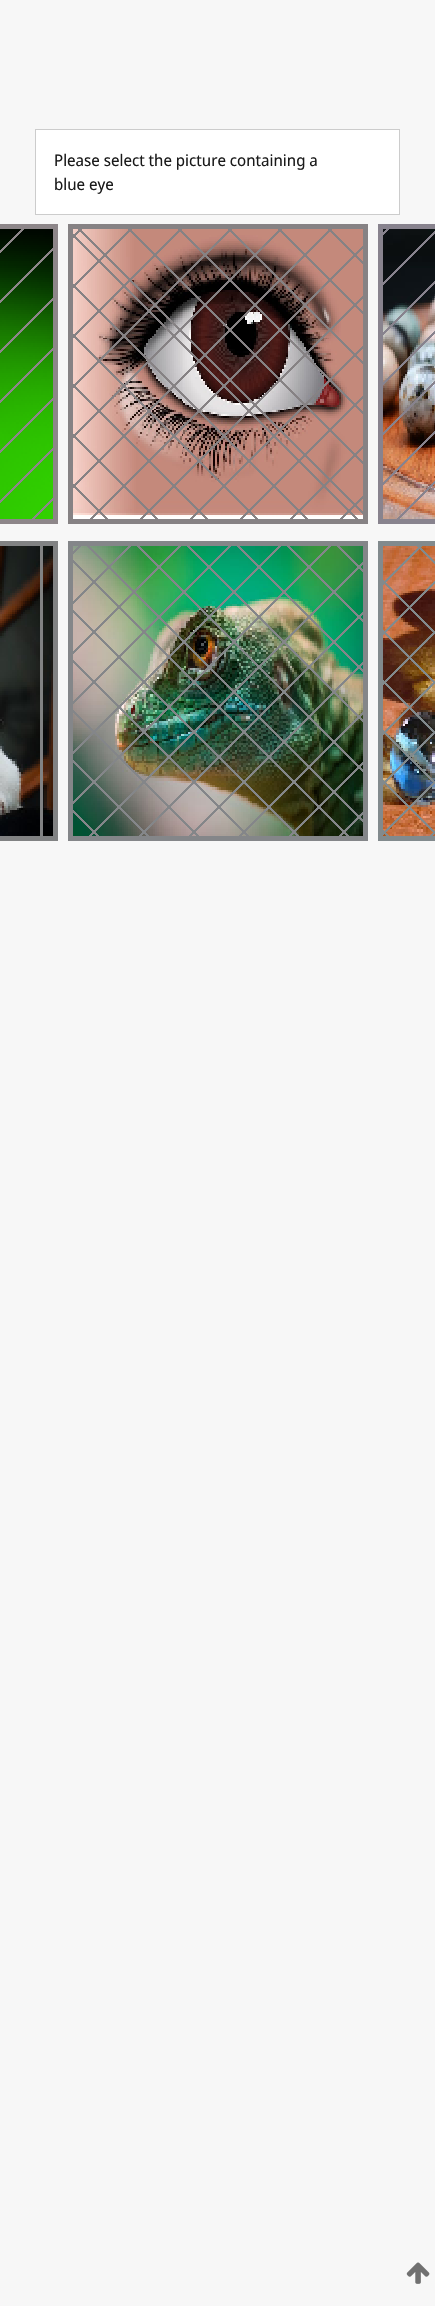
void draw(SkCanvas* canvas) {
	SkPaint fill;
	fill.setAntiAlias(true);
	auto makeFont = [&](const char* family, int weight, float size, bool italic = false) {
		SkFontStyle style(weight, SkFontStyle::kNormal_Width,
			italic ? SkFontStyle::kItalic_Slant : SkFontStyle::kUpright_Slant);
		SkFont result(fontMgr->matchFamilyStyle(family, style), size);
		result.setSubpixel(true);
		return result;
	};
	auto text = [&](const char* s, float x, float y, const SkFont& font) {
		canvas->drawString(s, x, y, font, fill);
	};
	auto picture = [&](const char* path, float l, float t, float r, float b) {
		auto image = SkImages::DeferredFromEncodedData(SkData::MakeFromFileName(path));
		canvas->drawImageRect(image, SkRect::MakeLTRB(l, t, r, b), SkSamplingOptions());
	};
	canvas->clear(0xFFF7F7F7);
	fill.setColor(0xFFFFFFFF);
	canvas->drawRect(SkRect::MakeLTRB(35.5f, 129.5f, 399.5f, 214.5f), fill);
	fill.setStyle(SkPaint::kStroke_Style);
	fill.setStrokeWidth(1);
	fill.setColor(0xFFCCCCCC);
	canvas->drawRect(SkRect::MakeLTRB(35.5f, 129.5f, 399.5f, 214.5f), fill);
	picture("image0.png", 0, 224, 58, 524);
	picture("image1.png", 68, 224, 368, 524);
	picture("image2.png", 378, 224, 435, 524);
	picture("image3.png", 0, 541, 58, 841);
	picture("image4.png", 68, 541, 368, 841);
	picture("image5.png", 378, 541, 435, 841);
	picture("image6.png", 406, 2262, 430, 2284);
	auto font1 = makeFont("Noto Sans Display", 400, 16);
	fill.setStyle(SkPaint::kFill_Style);
	fill.setColor(0xFF1A1A1A);
	text("Please select the picture containing a", 54, 166, font1);
	text("blue eye", 54, 190, font1);
}
